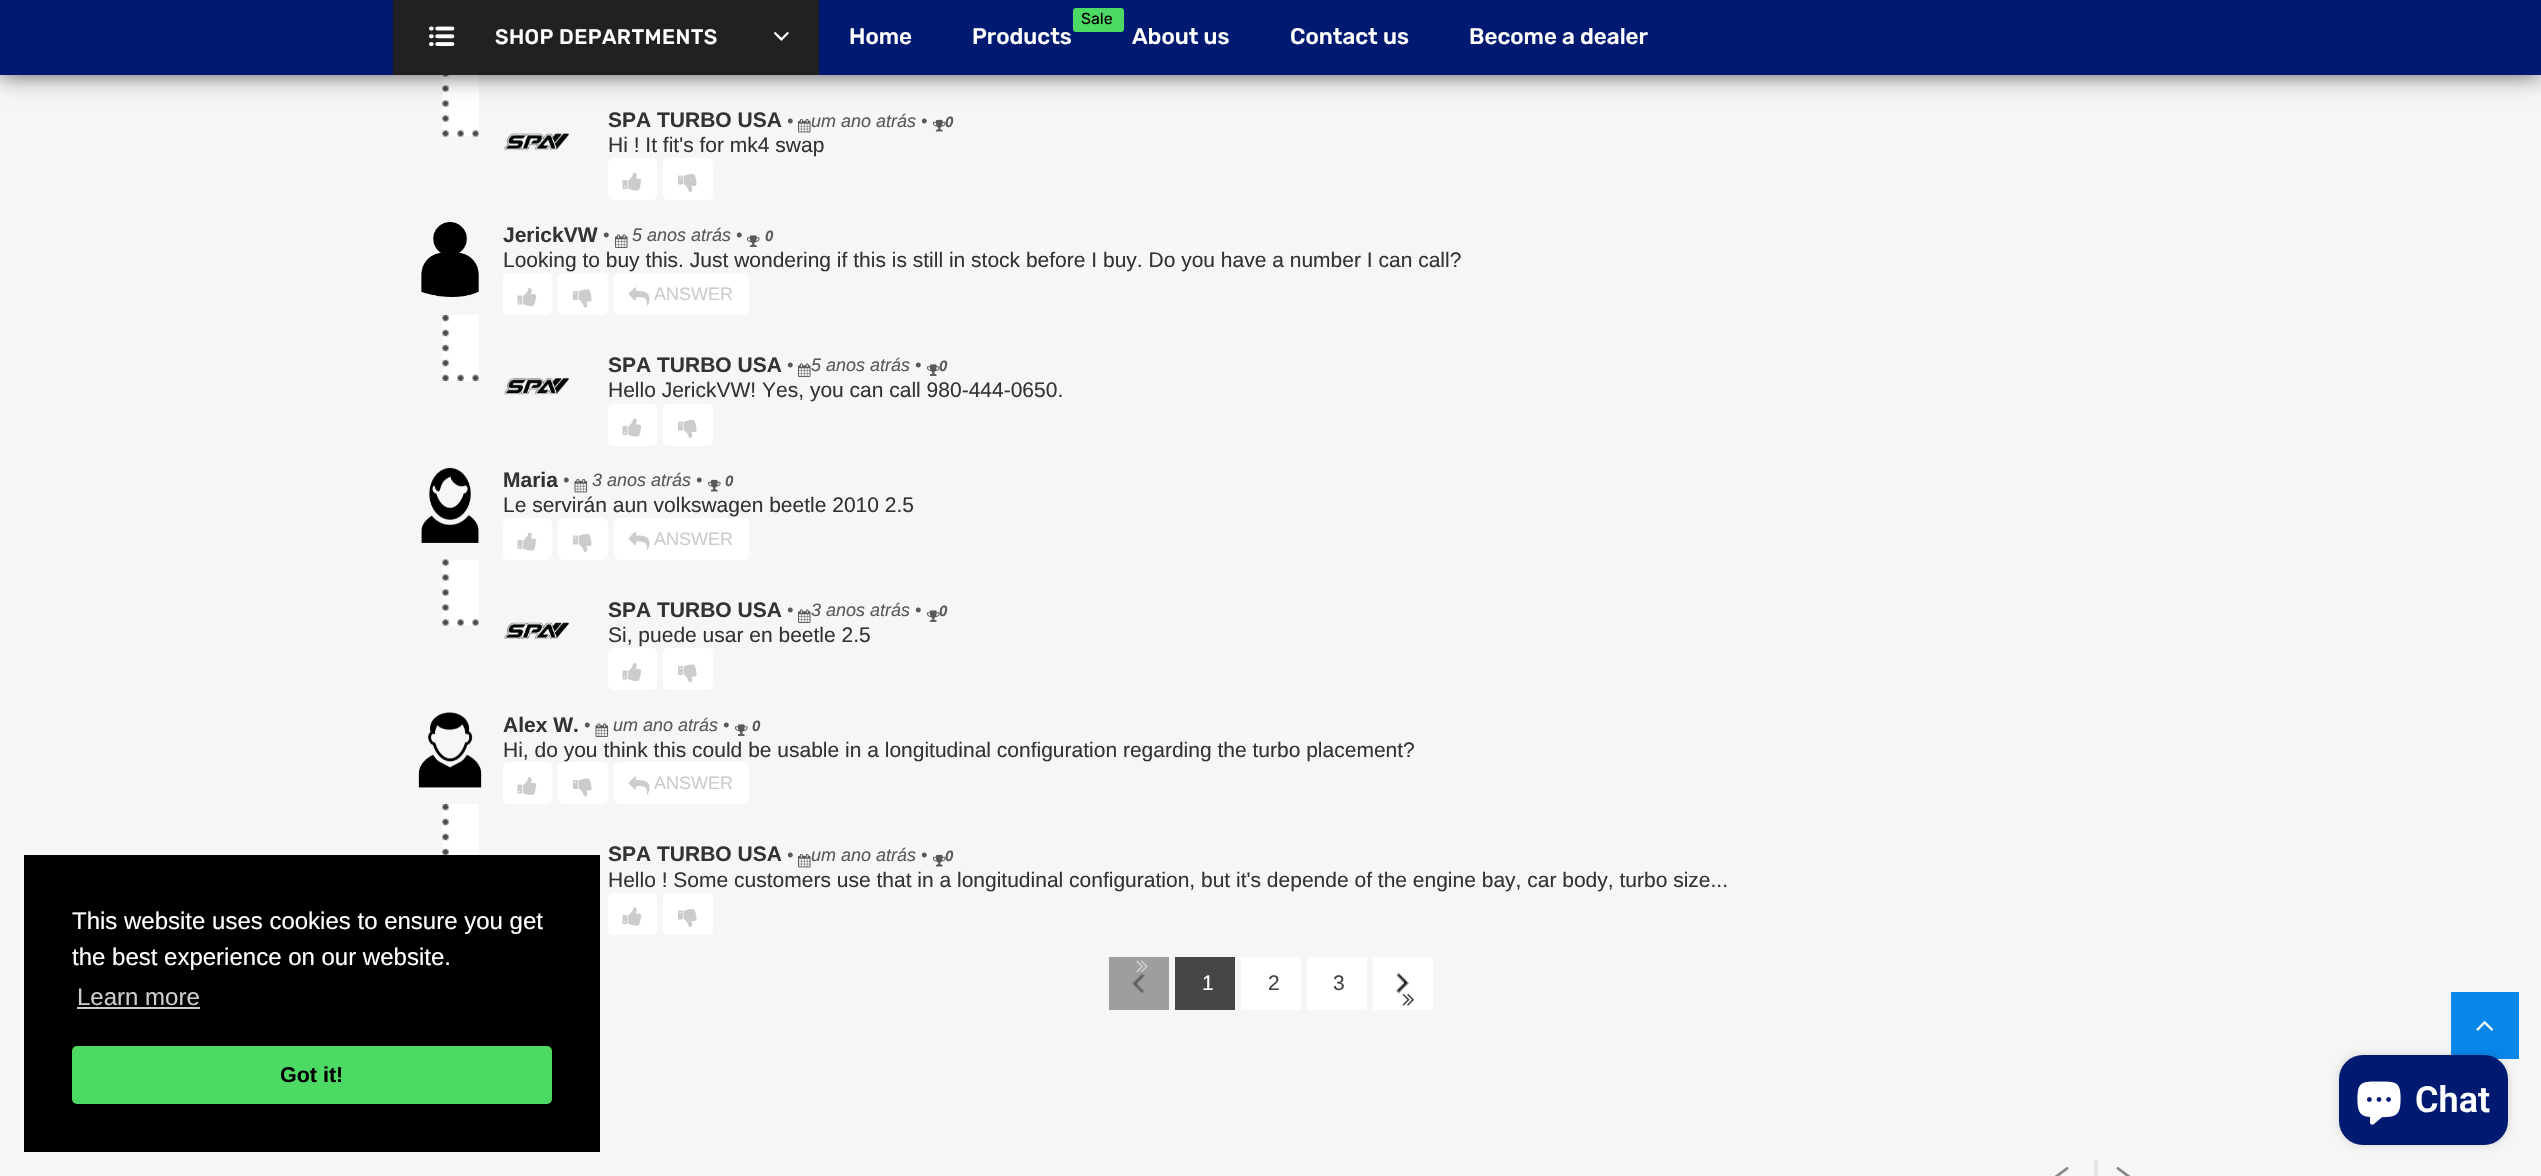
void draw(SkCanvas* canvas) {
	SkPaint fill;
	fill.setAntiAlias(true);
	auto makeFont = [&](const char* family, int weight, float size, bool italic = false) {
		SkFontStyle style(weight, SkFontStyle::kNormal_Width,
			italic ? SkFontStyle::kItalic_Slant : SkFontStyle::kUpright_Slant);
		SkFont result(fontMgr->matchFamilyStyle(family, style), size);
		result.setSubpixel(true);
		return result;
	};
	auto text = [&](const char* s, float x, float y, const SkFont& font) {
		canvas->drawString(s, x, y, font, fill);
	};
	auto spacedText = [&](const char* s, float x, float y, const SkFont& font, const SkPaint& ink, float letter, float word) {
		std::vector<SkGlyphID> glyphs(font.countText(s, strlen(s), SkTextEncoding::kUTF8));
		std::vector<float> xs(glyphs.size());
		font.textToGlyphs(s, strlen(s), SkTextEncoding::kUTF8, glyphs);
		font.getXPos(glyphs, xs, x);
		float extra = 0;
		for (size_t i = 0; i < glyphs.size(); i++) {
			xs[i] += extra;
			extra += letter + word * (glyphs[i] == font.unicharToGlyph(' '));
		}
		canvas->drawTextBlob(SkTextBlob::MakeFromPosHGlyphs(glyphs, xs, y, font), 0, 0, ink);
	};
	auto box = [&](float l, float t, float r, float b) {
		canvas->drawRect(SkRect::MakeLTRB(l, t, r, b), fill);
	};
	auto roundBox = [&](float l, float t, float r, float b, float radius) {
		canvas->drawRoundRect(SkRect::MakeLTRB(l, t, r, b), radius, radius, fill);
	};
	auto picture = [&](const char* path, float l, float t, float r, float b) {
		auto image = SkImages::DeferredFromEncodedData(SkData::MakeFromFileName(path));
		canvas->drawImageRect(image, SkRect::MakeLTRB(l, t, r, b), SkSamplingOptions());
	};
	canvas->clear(0xFFF6F6F6);
	fill.setColor(0xFF000000);
	box(24, 855, 600, 1152);
	fill.setColor(0xFFCCCCCC);
	box(77, 1007, 200, 1009);
	fill.setColor(0xFF4CD964);
	roundBox(72, 1046, 552, 1104, 5);
	picture("image2.png", 442, 75, 479, 137);
	fill.setColor(0xA6000000);
	fill.setMaskFilter(SkMaskFilter::MakeBlur(kNormal_SkBlurStyle, 11));
	canvas->drawRect(SkRect::MakeLTRB(0, 0, 2541, 75), fill);
	fill.setMaskFilter(nullptr);
	fill.setColor(0xFF001A71);
	box(0, 0, 2541, 75);
	fill.setColor(0xFF212121);
	box(393, 0, 819, 75);
	picture("image0.png", 429, 26, 455, 46);
	picture("image1.png", 774, 32, 789, 41);
	fill.setColor(0xFF4CD964);
	roundBox(1073, 8, 1124, 32, 3);
	picture("image3.png", 504, 133, 569, 151);
	picture("image4.png", 798, 118, 811, 133);
	picture("image5.png", 933, 119, 946, 132);
	fill.setColor(0xFFFFFFFF);
	roundBox(608, 158, 657, 200, 5);
	picture("image6.png", 622, 172, 642, 191);
	roundBox(663, 158, 713, 200, 5);
	picture("image7.png", 678, 174, 697, 192);
	picture("image8.png", 421, 222, 479, 297);
	picture("image9.png", 615, 234, 628, 248);
	picture("image10.png", 747, 235, 760, 247);
	roundBox(503, 273, 552, 315, 5);
	picture("image11.png", 517, 288, 537, 306);
	roundBox(558, 273, 608, 315, 5);
	picture("image12.png", 573, 289, 592, 308);
	roundBox(614, 273, 749, 315, 5);
	picture("image13.png", 628, 287, 650, 306);
	picture("image14.png", 442, 315, 479, 381);
	picture("image15.png", 504, 378, 569, 395);
	picture("image9.png", 798, 363, 811, 377);
	picture("image10.png", 927, 364, 940, 376);
	roundBox(608, 404, 657, 446, 5);
	picture("image6.png", 622, 418, 642, 437);
	roundBox(663, 404, 713, 446, 5);
	picture("image7.png", 678, 420, 697, 438);
	picture("image16.png", 421, 467, 479, 543);
	picture("image17.png", 574, 478, 588, 493);
	picture("image5.png", 708, 479, 721, 492);
	roundBox(503, 518, 552, 560, 5);
	picture("image6.png", 517, 532, 537, 551);
	roundBox(558, 518, 608, 560, 5);
	picture("image7.png", 573, 534, 592, 552);
	roundBox(614, 518, 749, 560, 5);
	picture("image18.png", 628, 531, 650, 551);
	picture("image19.png", 442, 559, 479, 626);
	picture("image20.png", 504, 622, 569, 639);
	picture("image9.png", 798, 609, 811, 623);
	picture("image10.png", 927, 610, 940, 622);
	roundBox(608, 648, 657, 690, 5);
	picture("image11.png", 622, 663, 642, 681);
	roundBox(663, 648, 713, 690, 5);
	picture("image12.png", 678, 664, 697, 683);
	picture("image21.png", 418, 712, 482, 788);
	picture("image22.png", 595, 723, 609, 737);
	picture("image10.png", 735, 724, 748, 736);
	roundBox(503, 762, 552, 804, 5);
	picture("image11.png", 517, 777, 537, 795);
	roundBox(558, 762, 608, 804, 5);
	picture("image12.png", 573, 778, 592, 797);
	roundBox(614, 762, 749, 804, 5);
	picture("image13.png", 628, 776, 650, 795);
	picture("image23.png", 442, 804, 479, 855);
	picture("image4.png", 798, 853, 811, 868);
	picture("image5.png", 933, 854, 946, 867);
	roundBox(608, 893, 657, 935, 5);
	picture("image6.png", 622, 907, 642, 926);
	roundBox(663, 893, 713, 935, 5);
	picture("image7.png", 678, 909, 697, 927);
	fill.setColor(0xFF9E9E9E);
	box(1109, 957, 1169, 1010);
	picture("image24.png", 1132, 973, 1145, 994);
	picture("image25.png", 1136, 960, 1148, 973);
	fill.setColor(0xFF454545);
	box(1175, 957, 1235, 1010);
	fill.setColor(0xFFFFFFFF);
	box(1241, 957, 1301, 1010);
	box(1307, 957, 1367, 1010);
	box(1373, 957, 1433, 1010);
	picture("image26.png", 1396, 973, 1409, 994);
	picture("image27.png", 1402, 994, 1414, 1006);
	fill.setColor(0xFFE4E4E4);
	box(2094, 1160, 2098, 1176);
	picture("image28.png", 2054, 1167, 2069, 1176);
	picture("image29.png", 2116, 1167, 2131, 1176);
	fill.setColor(0xFF0787EA);
	box(2451, 992, 2519, 1059);
	picture("image30.png", 2476, 1021, 2493, 1031);
	fill.setColor(0x26000000);
	fill.setMaskFilter(SkMaskFilter::MakeBlur(kNormal_SkBlurStyle, 4));
	canvas->drawRoundRect(SkRect::MakeLTRB(2339, 1055, 2508, 1145), 24, 24, fill);
	fill.setMaskFilter(nullptr);
	fill.setColor(0xFF001A71);
	roundBox(2339, 1055, 2508, 1145, 24);
	picture("image31.png", 2357, 1081, 2401, 1125);
	auto font1 = makeFont("Liberation Sans", 400, 24);
	fill.setColor(0xFFFFFFFF);
	text("This website uses cookies to ensure you get", 72, 929, font1);
	text("the best experience on our website.", 72, 965, font1);
	fill.setColor(0xFFCCCCCC);
	text("Learn more", 77, 1005, font1);
	auto font2 = makeFont("Liberation Sans", 700, 21.5f);
	fill.setColor(0xFF000000);
	text("Got it!", 280, 1082, font2);
	auto font3 = makeFont("Rubik", 500, 21);
	fill.setColor(0xFFFFFFFF);
	spacedText("SHOP DEPARTMENTS", 495, 44, font3, fill, 0.4f, 0);
	auto font4 = makeFont("Rubik", 500, 22.5f);
	text("Home", 849, 44, font4);
	auto font5 = makeFont("Rubik", 400, 16);
	fill.setColor(0xFF000000);
	text("Sale", 1081, 24, font5);
	fill.setColor(0xFFFFFFFF);
	text("Products", 972, 44, font4);
	text("About us", 1132, 44, font4);
	text("Contact us", 1290, 44, font4);
	text("Become a dealer", 1469, 44, font4);
	auto font6 = makeFont("Liberation Sans", 700, 21);
	fill.setColor(0xFF333333);
	text("SPA TURBO USA", 608, 127, font6);
	auto font7 = makeFont("Liberation Sans", 400, 18, true);
	fill.setColor(0xFF595959);
	text("•", 787, 127, font7);
	text("um ano atrás •", 811, 127, font7);
	auto font8 = makeFont("Liberation Sans", 700, 15, true);
	text("0", 945, 127, font8);
	auto font9 = makeFont("Liberation Sans", 400, 21);
	fill.setColor(0xFF333333);
	text("Hi ! It fit's for mk4 swap", 608, 152, font9);
	text("JerickVW", 503, 242, font6);
	fill.setColor(0xFF595959);
	text("•", 603, 241, font7);
	text("5 anos atrás •", 632, 241, font7);
	text("0", 765, 241, font8);
	fill.setColor(0xFF333333);
	text("Looking to buy this. Just wondering if this is still in stock before I buy. Do you have a number I can call?", 503, 267, font9);
	auto font10 = makeFont("Liberation Sans", 400, 18);
	fill.setColor(0xFFCCCCCC);
	text("ANSWER", 654, 300, font10);
	fill.setColor(0xFF333333);
	text("SPA TURBO USA", 608, 372, font6);
	fill.setColor(0xFF595959);
	text("•", 787, 371, font7);
	text("5 anos atrás •", 811, 371, font7);
	text("0", 939, 371, font8);
	fill.setColor(0xFF333333);
	text("Hello JerickVW! Yes, you can call 980-444-0650.", 608, 397, font9);
	text("Maria", 503, 487, font6);
	fill.setColor(0xFF595959);
	text("•", 563, 486, font7);
	text("3 anos atrás •", 592, 486, font7);
	text("0", 725, 486, font8);
	fill.setColor(0xFF333333);
	text("Le servirán aun volkswagen beetle 2010 2.5", 503, 512, font9);
	fill.setColor(0xFFCCCCCC);
	text("ANSWER", 654, 545, font10);
	fill.setColor(0xFF333333);
	text("SPA TURBO USA", 608, 617, font6);
	fill.setColor(0xFF595959);
	text("•", 787, 616, font7);
	text("3 anos atrás •", 811, 616, font7);
	text("0", 939, 616, font8);
	fill.setColor(0xFF333333);
	text("Si, puede usar en beetle 2.5", 608, 642, font9);
	text("Alex W.", 503, 732, font6);
	fill.setColor(0xFF595959);
	text("•", 584, 731, font7);
	text("um ano atrás •", 613, 731, font7);
	text("0", 752, 731, font8);
	fill.setColor(0xFF333333);
	text("Hi, do you think this could be usable in a longitudinal configuration regarding the turbo placement?", 503, 757, font9);
	fill.setColor(0xFFCCCCCC);
	text("ANSWER", 654, 789, font10);
	fill.setColor(0xFF333333);
	text("SPA TURBO USA", 608, 861, font6);
	fill.setColor(0xFF595959);
	text("•", 787, 861, font7);
	text("um ano atrás •", 811, 861, font7);
	text("0", 945, 861, font8);
	fill.setColor(0xFF333333);
	text("Hello ! Some customers use that in a longitudinal configuration, but it's depende of the engine bay, car body, turbo size...", 608, 887, font9);
	fill.setColor(0xFFFFFFFF);
	text("1", 1202, 990, font9);
	fill.setColor(0xFF454545);
	text("2", 1268, 990, font9);
	text("3", 1333, 990, font9);
	auto font11 = makeFont("Roboto", 600, 36);
	fill.setColor(0xFFFFFFFF);
	text("Chat", 2415, 1112, font11);
}
